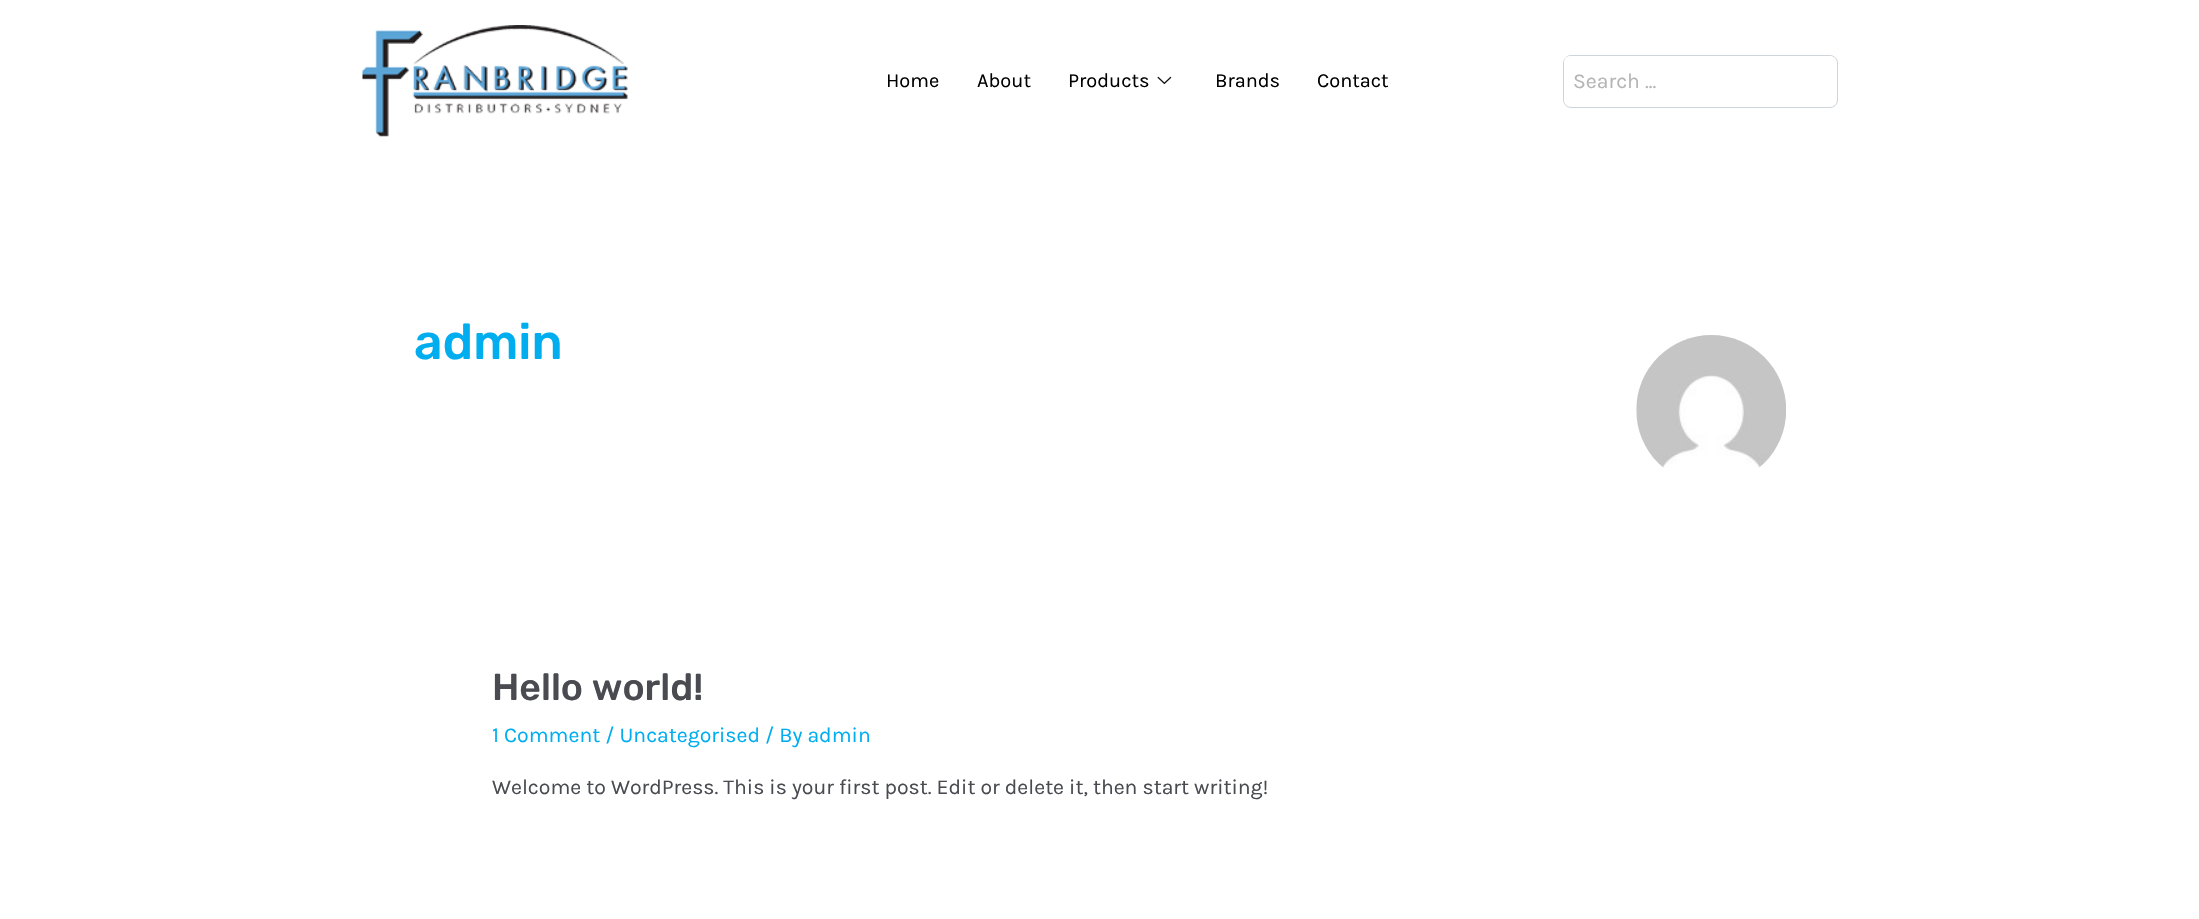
void draw(SkCanvas* canvas) {
	SkPaint fill;
	fill.setAntiAlias(true);
	auto makeFont = [&](const char* family, int weight, float size, bool italic = false) {
		SkFontStyle style(weight, SkFontStyle::kNormal_Width,
			italic ? SkFontStyle::kItalic_Slant : SkFontStyle::kUpright_Slant);
		SkFont result(fontMgr->matchFamilyStyle(family, style), size);
		result.setSubpixel(true);
		return result;
	};
	auto text = [&](const char* s, float x, float y, const SkFont& font) {
		canvas->drawString(s, x, y, font, fill);
	};
	auto roundBox = [&](float l, float t, float r, float b, float radius) {
		canvas->drawRoundRect(SkRect::MakeLTRB(l, t, r, b), radius, radius, fill);
	};
	auto picture = [&](const char* path, float l, float t, float r, float b) {
		auto image = SkImages::DeferredFromEncodedData(SkData::MakeFromFileName(path));
		canvas->drawImageRect(image, SkRect::MakeLTRB(l, t, r, b), SkSamplingOptions());
	};
	canvas->clear(0xFFFFFFFF);
	picture("image0.png", 362, 25, 628, 137);
	picture("image1.png", 1157, 76, 1172, 84);
	fill.setStyle(SkPaint::kStroke_Style);
	fill.setStrokeWidth(1);
	fill.setColor(0xFFCED4DA);
	canvas->drawRoundRect(SkRect::MakeLTRB(1563.5f, 55.5f, 1837.5f, 107.5f), 7.5f, 7.5f, fill);
	fill.setStyle(SkPaint::kFill_Style);
	fill.setColor(0xFFFFFFFF);
	roundBox(1564, 56, 1836, 106, 6);
	picture("image2.png", 1636, 335, 1786, 468);
	auto font1 = makeFont("Karla", 400, 20);
	fill.setColor(0xFF000000);
	text("Home", 886, 87, font1);
	text("About", 977, 87, font1);
	text("Products", 1068, 87, font1);
	text("Brands", 1215, 87, font1);
	text("Contact", 1317, 87, font1);
	auto font2 = makeFont("Karla", 400, 21.25f);
	fill.setColor(0xFFB5B5B5);
	text("Search ...", 1573, 88, font2);
	auto font3 = makeFont("Rubik", 500, 50);
	fill.setColor(0xFF00AEEF);
	text("admin", 414, 359, font3);
	auto font4 = makeFont("Rubik", 500, 37.5f);
	fill.setColor(0xFF494B51);
	text("Hello world!", 492, 700, font4);
	fill.setColor(0xFF00AEEF);
	text("1 Comment / Uncategorised / By admin", 492, 742, font2);
	fill.setColor(0xFF494B51);
	text("Welcome to WordPress. This is your first post. Edit or delete it, then start writing!", 492, 794, font2);
}
